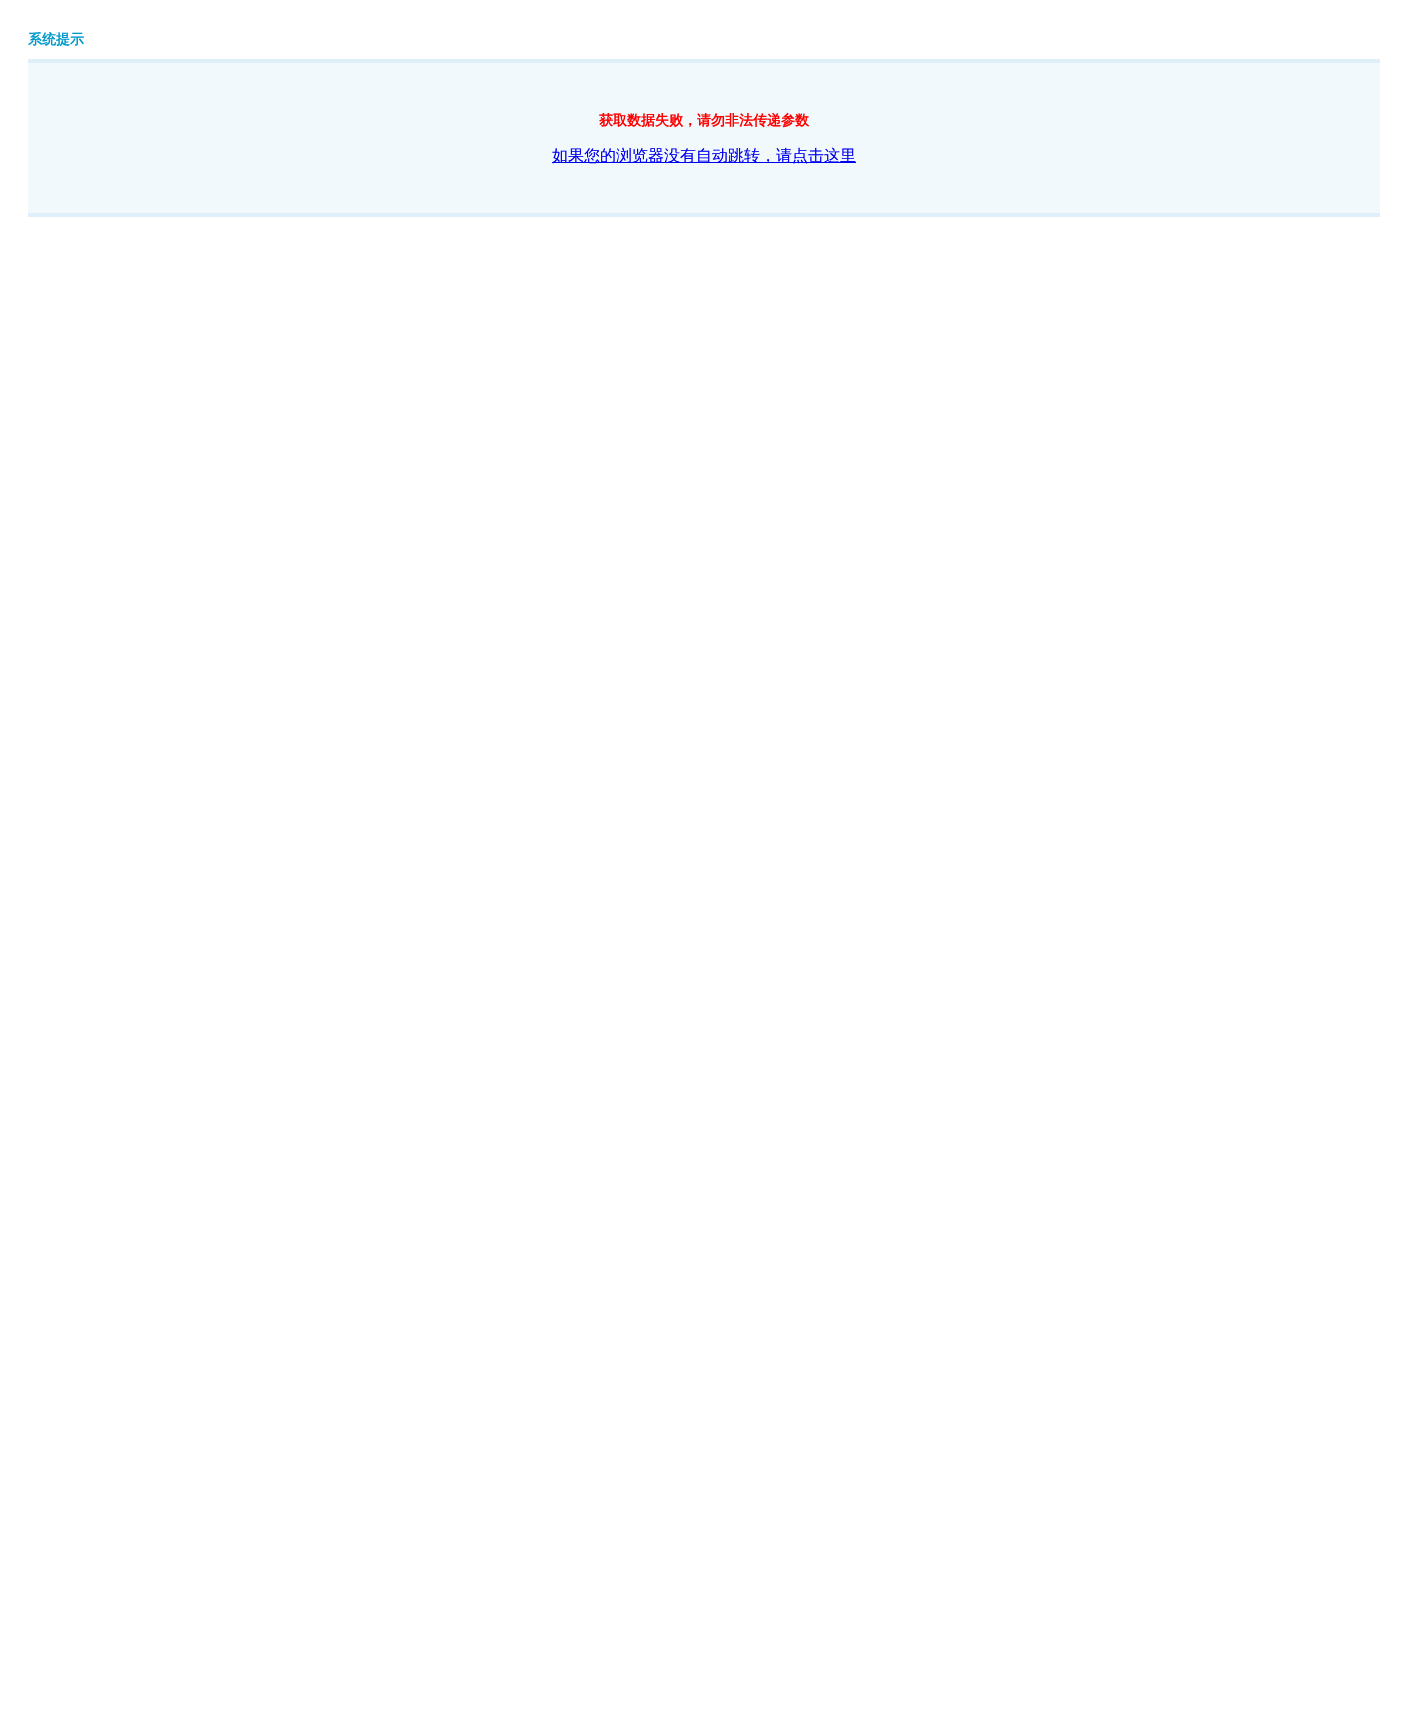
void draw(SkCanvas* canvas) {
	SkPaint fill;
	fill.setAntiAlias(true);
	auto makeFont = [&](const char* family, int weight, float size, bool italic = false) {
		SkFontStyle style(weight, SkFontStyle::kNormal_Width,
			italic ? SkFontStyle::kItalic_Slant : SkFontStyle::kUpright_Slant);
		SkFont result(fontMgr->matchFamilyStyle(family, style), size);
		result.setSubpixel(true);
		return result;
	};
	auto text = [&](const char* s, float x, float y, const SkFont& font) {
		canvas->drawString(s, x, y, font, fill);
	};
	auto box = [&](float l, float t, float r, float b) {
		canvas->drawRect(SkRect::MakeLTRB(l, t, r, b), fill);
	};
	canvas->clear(0xFFFFFFFF);
	fill.setColor(0xFFF2F9FD);
	box(28, 63, 1380, 213);
	fill.setColor(0xFFDEEFFA);
	box(28, 59, 1380, 63);
	fill.setColor(0xFFDEEEFA);
	box(28, 213, 1380, 217);
	fill.setColor(0xFF0000EE);
	box(552, 162, 856, 163);
	auto font1 = makeFont("WenQuanYi Zen Hei", 700, 14);
	fill.setColor(0xFF0099CC);
	text("系统提示", 28, 44, font1);
	fill.setColor(0xFFFF0000);
	text("获取数据失败，请勿非法传递参数", 599, 125, font1);
	auto font2 = makeFont("WenQuanYi Zen Hei", 500, 16);
	fill.setColor(0xFF0000EE);
	text("如果您的浏览器没有自动跳转，请点击这里", 552, 161, font2);
}
